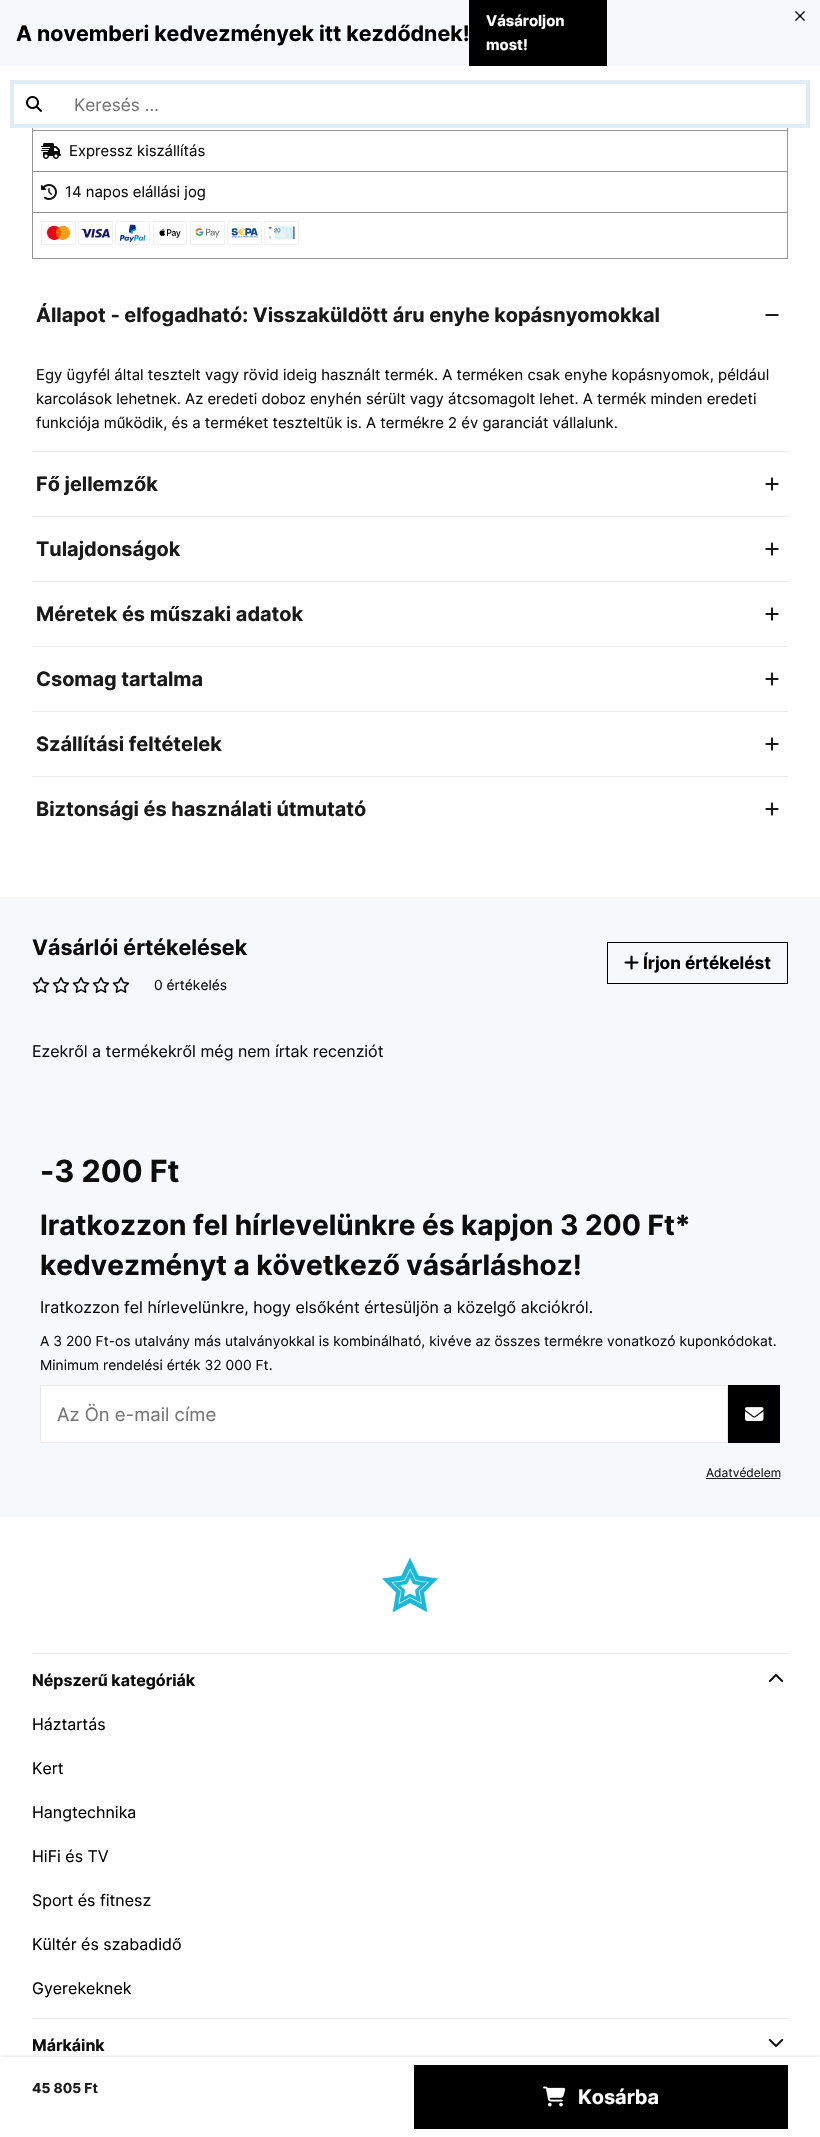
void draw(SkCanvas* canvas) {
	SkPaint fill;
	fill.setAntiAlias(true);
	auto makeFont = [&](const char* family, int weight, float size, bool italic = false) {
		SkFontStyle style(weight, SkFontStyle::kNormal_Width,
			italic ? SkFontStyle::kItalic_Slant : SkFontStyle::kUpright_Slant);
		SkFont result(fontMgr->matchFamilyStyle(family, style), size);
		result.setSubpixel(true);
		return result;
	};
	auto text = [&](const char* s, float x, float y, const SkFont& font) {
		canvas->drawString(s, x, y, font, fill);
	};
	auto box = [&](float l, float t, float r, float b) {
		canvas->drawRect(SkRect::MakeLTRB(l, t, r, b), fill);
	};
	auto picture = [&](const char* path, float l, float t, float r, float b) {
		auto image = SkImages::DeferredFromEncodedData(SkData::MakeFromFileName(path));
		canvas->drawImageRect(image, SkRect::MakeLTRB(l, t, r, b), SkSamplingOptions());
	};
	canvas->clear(0xFFFFFFFF);
	fill.setColor(0xFFF5F9FC);
	box(0, 0, 820, 66);
	fill.setColor(0xFF000000);
	box(469, 0, 607, 66);
	picture("image0.png", 795, 11, 805, 21);
	fill.setStyle(SkPaint::kStroke_Style);
	fill.setStrokeWidth(4);
	fill.setColor(0xFFE0EBF5);
	canvas->drawRect(SkRect::MakeLTRB(12, 82, 808, 126), fill);
	picture("image1.png", 26, 96, 42, 112);
	fill.setStyle(SkPaint::kFill_Style);
	fill.setColor(0xFF949494);
	box(787, 128, 788, 259);
	box(32, 130, 788, 131);
	box(32, 128, 33, 131);
	box(32, 171, 788, 172);
	box(32, 131, 33, 172);
	picture("image2.png", 41, 143, 61, 159);
	box(32, 212, 788, 213);
	box(32, 172, 33, 213);
	picture("image3.png", 41, 184, 57, 200);
	box(32, 258, 788, 259);
	box(32, 213, 33, 259);
	picture("image4.png", 41, 221, 76, 245);
	picture("image5.png", 78, 221, 113, 245);
	picture("image6.png", 115, 221, 150, 245);
	picture("image7.png", 153, 221, 187, 245);
	picture("image8.png", 190, 221, 225, 245);
	picture("image9.png", 227, 221, 262, 245);
	picture("image10.png", 264, 221, 299, 245);
	picture("image11.png", 765, 314, 779, 316);
	fill.setColor(0xFFEBEBEB);
	box(32, 451, 788, 452);
	picture("image12.png", 765, 477, 779, 491);
	box(32, 516, 788, 517);
	picture("image12.png", 765, 542, 779, 556);
	box(32, 581, 788, 582);
	picture("image12.png", 765, 607, 779, 621);
	box(32, 646, 788, 647);
	picture("image12.png", 765, 672, 779, 686);
	box(32, 711, 788, 712);
	picture("image12.png", 765, 737, 779, 751);
	box(32, 776, 788, 777);
	picture("image12.png", 765, 802, 779, 816);
	fill.setColor(0x33000000);
	fill.setMaskFilter(SkMaskFilter::MakeBlur(kNormal_SkBlurStyle, 2.5f));
	canvas->drawRect(SkRect::MakeLTRB(0, 2058, 820, 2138), fill);
	fill.setMaskFilter(nullptr);
	fill.setColor(0xFFFFFFFF);
	box(0, 2057, 820, 2137);
	fill.setColor(0xFF000000);
	box(414, 2065, 788, 2129);
	picture("image13.png", 543, 2086, 566, 2107);
	fill.setColor(0xFFF5F9FC);
	box(0, 897, 820, 1517);
	picture("image14.png", 32, 977, 50, 993);
	picture("image14.png", 52, 977, 70, 993);
	picture("image14.png", 72, 977, 90, 993);
	picture("image14.png", 92, 977, 110, 993);
	picture("image14.png", 112, 977, 130, 993);
	fill.setStyle(SkPaint::kStroke_Style);
	fill.setStrokeWidth(1);
	fill.setColor(0xFF000000);
	canvas->drawRect(SkRect::MakeLTRB(607.5f, 942.5f, 787.5f, 983.5f), fill);
	picture("image15.png", 624, 955, 639, 970);
	fill.setStyle(SkPaint::kFill_Style);
	fill.setColor(0xFFFFFFFF);
	canvas->drawRect(SkRect::MakeLTRB(40.5f, 1385.5f, 727.5f, 1442.5f), fill);
	fill.setStyle(SkPaint::kStroke_Style);
	fill.setColor(0xFFEBEBEB);
	canvas->drawRect(SkRect::MakeLTRB(40.5f, 1385.5f, 727.5f, 1442.5f), fill);
	fill.setStyle(SkPaint::kFill_Style);
	fill.setColor(0xFF000000);
	box(728, 1385, 780, 1443);
	picture("image16.png", 745, 1407, 764, 1421);
	fill.setColor(0xFF1A1919);
	box(706, 1478, 780, 1479);
	picture("image17.png", 382, 1557, 438, 1613);
	fill.setColor(0xFFEBEBEB);
	box(32, 1653, 788, 1654);
	picture("image18.png", 768, 1674, 784, 1683);
	box(32, 2018, 788, 2019);
	picture("image19.png", 768, 2038, 784, 2048);
	auto font1 = makeFont("Inter", 700, 21.4f);
	fill.setColor(0xFF000000);
	text("A novemberi kedvezmények itt kezdődnek!", 16, 41, font1);
	auto font2 = makeFont("Inter", 700, 14.9f);
	fill.setColor(0xFFFFFFFF);
	text("Vásároljon", 486, 26, font2);
	text("most!", 486, 50, font2);
	auto font3 = makeFont("Inter", 400, 17.25f);
	fill.setColor(0xFF757575);
	text("Keresés …", 74, 111, font3);
	auto font4 = makeFont("Inter", 400, 14.9f);
	fill.setColor(0xFF0D0D0D);
	text("Expressz kiszállítás", 69, 156, font4);
	text("14 napos elállási jog", 65, 197, font4);
	auto font5 = makeFont("Inter", 700, 19.9f);
	fill.setColor(0xFF1A1919);
	text("Állapot - elfogadható: Visszaküldött áru enyhe kopásnyomokkal", 36, 322, font5);
	fill.setColor(0xFF0D0D0D);
	text("Egy ügyfél által tesztelt vagy rövid ideig használt termék. A terméken csak enyhe kopásnyomok, például", 36, 380, font4);
	text("karcolások lehetnek. Az eredeti doboz enyhén sérült vagy átcsomagolt lehet. A termék minden eredeti", 36, 404, font4);
	text("funkciója működik, és a terméket teszteltük is. A termékre 2 év garanciát vállalunk.", 36, 428, font4);
	fill.setColor(0xFF1A1919);
	text("Fő jellemzők", 36, 491, font5);
	text("Tulajdonságok", 36, 556, font5);
	text("Méretek és műszaki adatok", 36, 621, font5);
	text("Csomag tartalma", 36, 686, font5);
	text("Szállítási feltételek", 36, 751, font5);
	text("Biztonsági és használati útmutató", 36, 816, font5);
	auto font6 = makeFont("Inter", 700, 13.85f);
	text("45 805 Ft", 32, 2093, font6);
	fill.setColor(0xFFFFFFFF);
	text("Kosárba", 578, 2104, font5);
	fill.setColor(0xFF0D0D0D);
	text("Vásárlói értékelések", 32, 955, font1);
	auto font7 = makeFont("Inter", 400, 13.85f);
	text("0 értékelés", 154, 990, font7);
	auto font8 = makeFont("Inter", 700, 17.25f);
	fill.setColor(0xFF000000);
	text("Írjon értékelést", 643, 969, font8);
	auto font9 = makeFont("Inter", 400, 16);
	fill.setColor(0xFF0D0D0D);
	text("Ezekről a termékekről még nem írtak recenziót", 32, 1057, font9);
	auto font10 = makeFont("Inter", 700, 30.5f);
	text("-3 200 Ft", 40, 1182, font10);
	auto font11 = makeFont("Inter", 700, 28);
	text("Iratkozzon fel hírlevelünkre és kapjon 3 200 Ft*", 40, 1235, font11);
	text("kedvezményt a következő vásárláshoz!", 40, 1275, font11);
	text("Iratkozzon fel hírlevelünkre, hogy elsőként értesüljön a közelgő akciókról.", 40, 1313, font9);
	text("A 3 200 Ft-os utalvány más utalványokkal is kombinálható, kivéve az összes termékre vonatkozó kuponkódokat.", 40, 1346, font7);
	text("Minimum rendelési érték 32 000 Ft.", 40, 1370, font7);
	auto font12 = makeFont("Inter", 400, 18.5f);
	fill.setColor(0xFF757575);
	text("Az Ön e-mail címe", 57, 1421, font12);
	auto font13 = makeFont("Inter", 400, 12);
	fill.setColor(0xFF1A1919);
	text("Adatvédelem", 706, 1477, font13);
	auto font14 = makeFont("Inter", 700, 16);
	fill.setColor(0xFF0D0D0D);
	text("Népszerű kategóriák", 32, 1686, font14);
	fill.setColor(0xFF000000);
	text("Háztartás", 32, 1730, font9);
	text("Kert", 32, 1774, font9);
	text("Hangtechnika", 32, 1818, font9);
	text("HiFi és TV", 32, 1862, font9);
	text("Sport és fitnesz", 32, 1906, font9);
	text("Kültér és szabadidő", 32, 1950, font9);
	text("Gyerekeknek", 32, 1994, font9);
	fill.setColor(0xFF0D0D0D);
	text("Márkáink", 32, 2051, font14);
}
